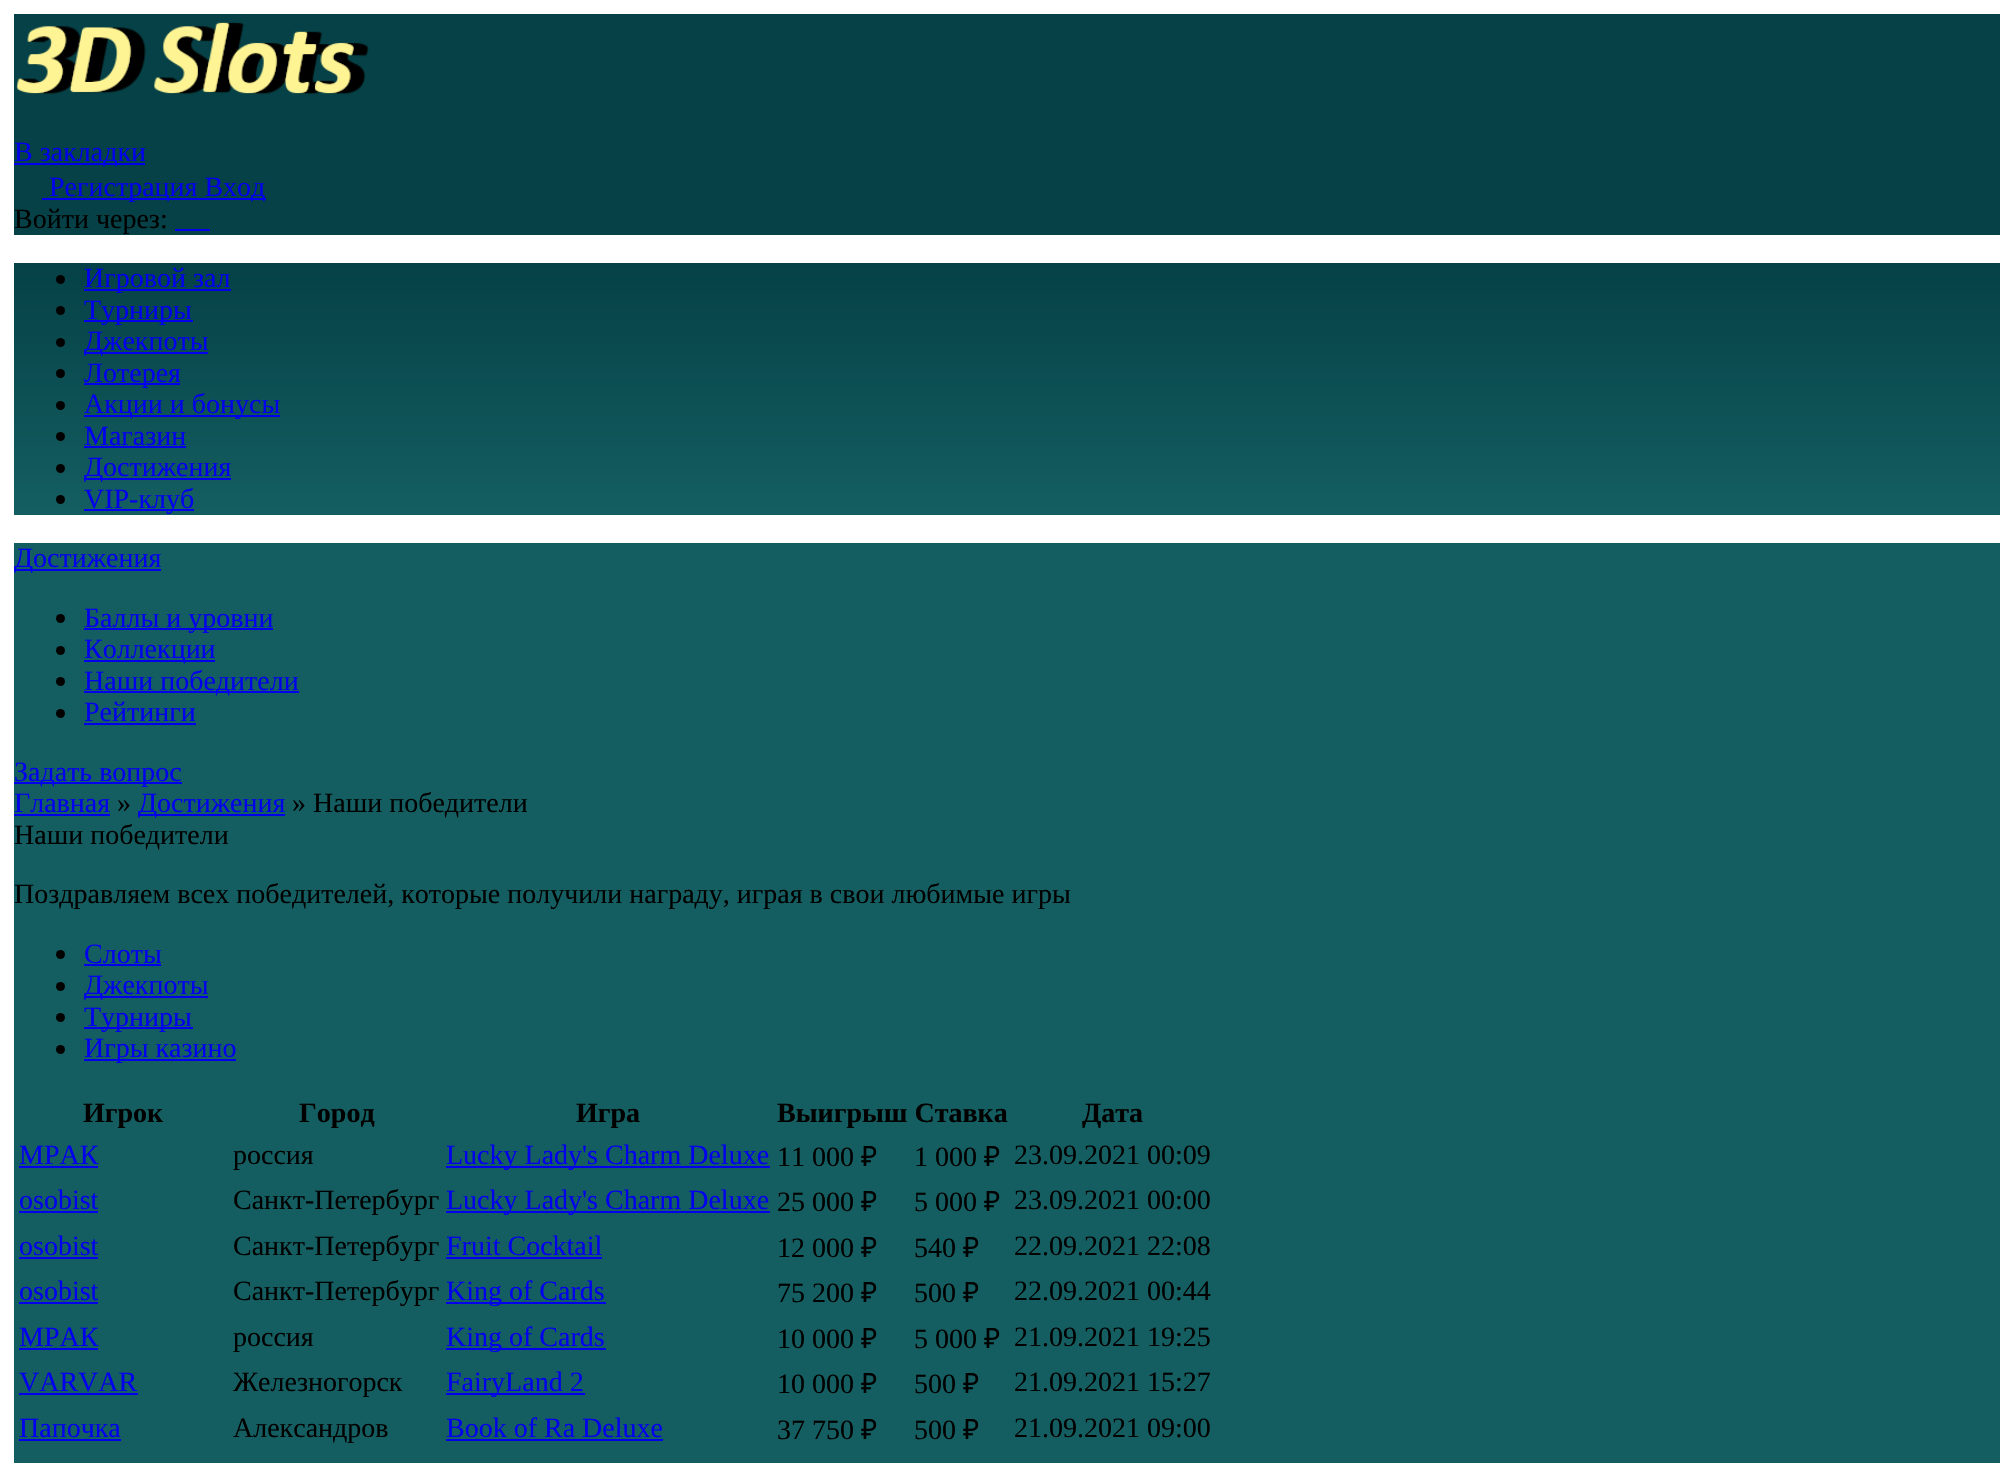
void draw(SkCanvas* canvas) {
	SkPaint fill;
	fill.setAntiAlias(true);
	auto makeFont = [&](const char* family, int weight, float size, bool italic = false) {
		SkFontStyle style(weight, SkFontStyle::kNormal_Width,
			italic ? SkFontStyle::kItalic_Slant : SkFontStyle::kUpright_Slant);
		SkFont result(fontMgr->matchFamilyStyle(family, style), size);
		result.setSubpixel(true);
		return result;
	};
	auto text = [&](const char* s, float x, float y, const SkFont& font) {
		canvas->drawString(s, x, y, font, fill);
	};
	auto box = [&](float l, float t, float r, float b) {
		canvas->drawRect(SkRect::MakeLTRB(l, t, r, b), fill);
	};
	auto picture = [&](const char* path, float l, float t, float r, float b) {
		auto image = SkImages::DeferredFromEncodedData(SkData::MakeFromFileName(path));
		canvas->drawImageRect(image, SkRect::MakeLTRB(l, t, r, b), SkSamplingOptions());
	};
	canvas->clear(0xFFFFFFFF);
	fill.setColor(0xFF054146);
	box(14, 14, 2000, 235);
	picture("image0.png", 16, 22, 369, 95);
	fill.setColor(0xFF0000EE);
	box(14, 163, 145, 165);
	box(42, 198, 266, 200);
	box(175, 229, 210, 231);
	{
		const SkColor colors[] = {0xFF054146, 0xFF145E61};
		const float stops[] = {0, 1};
		const SkPoint ends[] = {{1007, 262}, {1007, 515}};
		fill.setShader(SkGradientShader::MakeLinear(ends, colors, stops, 2, SkTileMode::kClamp));
		fill.setAlpha(255);
	}
	box(14, 263, 2000, 515);
	fill.setShader(nullptr);
	fill.setColor(0xFF000000);
	canvas->drawCircle(60.5f, 279.5f, 4.5f, fill);
	fill.setColor(0xFF0000EE);
	box(84, 289, 231, 291);
	fill.setColor(0xFF000000);
	canvas->drawCircle(60.5f, 310.5f, 4.5f, fill);
	fill.setColor(0xFF0000EE);
	box(84, 320, 193, 322);
	fill.setColor(0xFF000000);
	canvas->drawCircle(60.5f, 342.5f, 4.5f, fill);
	fill.setColor(0xFF0000EE);
	box(84, 352, 208, 354);
	fill.setColor(0xFF000000);
	canvas->drawCircle(60.5f, 373.5f, 4.5f, fill);
	fill.setColor(0xFF0000EE);
	box(84, 383, 180, 385);
	fill.setColor(0xFF000000);
	canvas->drawCircle(60.5f, 405.5f, 4.5f, fill);
	fill.setColor(0xFF0000EE);
	box(84, 415, 280, 417);
	fill.setColor(0xFF000000);
	canvas->drawCircle(60.5f, 436.5f, 4.5f, fill);
	fill.setColor(0xFF0000EE);
	box(84, 446, 186, 448);
	fill.setColor(0xFF000000);
	canvas->drawCircle(60.5f, 468.5f, 4.5f, fill);
	fill.setColor(0xFF0000EE);
	box(84, 478, 231, 480);
	fill.setColor(0xFF000000);
	canvas->drawCircle(60.5f, 499.5f, 4.5f, fill);
	fill.setColor(0xFF0000EE);
	box(84, 509, 194, 511);
	fill.setColor(0xFF145E61);
	box(14, 543, 2000, 1463);
	fill.setColor(0xFF0000EE);
	box(14, 569, 161, 571);
	fill.setColor(0xFF000000);
	canvas->drawCircle(60.5f, 618.5f, 4.5f, fill);
	fill.setColor(0xFF0000EE);
	box(84, 628, 273, 630);
	fill.setColor(0xFF000000);
	canvas->drawCircle(60.5f, 650.5f, 4.5f, fill);
	fill.setColor(0xFF0000EE);
	box(84, 660, 215, 662);
	fill.setColor(0xFF000000);
	canvas->drawCircle(60.5f, 681.5f, 4.5f, fill);
	fill.setColor(0xFF0000EE);
	box(84, 691, 299, 693);
	fill.setColor(0xFF000000);
	canvas->drawCircle(60.5f, 713.5f, 4.5f, fill);
	fill.setColor(0xFF0000EE);
	box(84, 723, 196, 725);
	box(14, 782, 182, 784);
	box(14, 814, 110, 816);
	box(138, 814, 285, 816);
	fill.setColor(0xFF000000);
	canvas->drawCircle(60.5f, 954.5f, 4.5f, fill);
	fill.setColor(0xFF0000EE);
	box(84, 964, 161, 966);
	fill.setColor(0xFF000000);
	canvas->drawCircle(60.5f, 986.5f, 4.5f, fill);
	fill.setColor(0xFF0000EE);
	box(84, 996, 208, 998);
	fill.setColor(0xFF000000);
	canvas->drawCircle(60.5f, 1017.5f, 4.5f, fill);
	fill.setColor(0xFF0000EE);
	box(84, 1027, 193, 1029);
	fill.setColor(0xFF000000);
	canvas->drawCircle(60.5f, 1049.5f, 4.5f, fill);
	fill.setColor(0xFF0000EE);
	box(84, 1059, 236, 1061);
	box(19, 1166, 98, 1168);
	box(446, 1166, 770, 1168);
	box(19, 1211, 98, 1213);
	box(446, 1211, 770, 1213);
	box(19, 1257, 98, 1259);
	box(446, 1257, 602, 1259);
	box(19, 1302, 98, 1304);
	box(446, 1302, 606, 1304);
	box(19, 1348, 98, 1350);
	box(446, 1348, 606, 1350);
	box(19, 1393, 138, 1395);
	box(446, 1393, 585, 1395);
	box(19, 1439, 121, 1441);
	box(446, 1439, 663, 1441);
	auto font1 = makeFont("Liberation Serif", 400, 28);
	text("В закладки", 14, 161, font1);
	text("Регистрация Вход", 49, 196, font1);
	fill.setColor(0xFF000000);
	text("Войти через:", 14, 228, font1);
	fill.setColor(0xFF0000EE);
	text("Игровой зал", 84, 287, font1);
	text("Турниры", 84, 319, font1);
	text("Джекпоты", 84, 350, font1);
	text("Лотерея", 84, 382, font1);
	text("Акции и бонусы", 84, 413, font1);
	text("Магазин", 84, 445, font1);
	text("Достижения", 84, 476, font1);
	text("VIP-клуб", 84, 508, font1);
	text("Достижения", 14, 567, font1);
	text("Баллы и уровни", 84, 627, font1);
	text("Коллекции", 84, 658, font1);
	text("Наши победители", 84, 690, font1);
	text("Рейтинги", 84, 721, font1);
	text("Задать вопрос", 14, 781, font1);
	text("Главная", 14, 812, font1);
	fill.setColor(0xFF000000);
	text("»", 117, 812, font1);
	fill.setColor(0xFF0000EE);
	text("Достижения", 138, 812, font1);
	fill.setColor(0xFF000000);
	text("» Наши победители", 292, 812, font1);
	text("Наши победители", 14, 844, font1);
	text("Поздравляем всех победителей, которые получили награду, играя в свои любимые игры", 14, 903, font1);
	fill.setColor(0xFF0000EE);
	text("Слоты", 84, 963, font1);
	text("Джекпоты", 84, 994, font1);
	text("Турниры", 84, 1026, font1);
	text("Игры казино", 84, 1057, font1);
	auto font2 = makeFont("Liberation Serif", 700, 28);
	fill.setColor(0xFF000000);
	text("Игрок", 83, 1122, font2);
	text("Город", 299, 1122, font2);
	text("Игра", 576, 1122, font2);
	text("Выигрыш Ставка", 777, 1122, font2);
	text("Дата", 1082, 1122, font2);
	fill.setColor(0xFF0000EE);
	text("МРАК", 19, 1164, font1);
	fill.setColor(0xFF000000);
	text("россия", 233, 1164, font1);
	fill.setColor(0xFF0000EE);
	text("Lucky Lady's Charm Deluxe", 446, 1164, font1);
	fill.setColor(0xFF000000);
	text("11 000", 777, 1166, font1);
	auto font3 = makeFont("Noto Sans", 400, 28);
	text("₽", 861, 1166, font3);
	text("1 000", 914, 1166, font1);
	text("₽", 984, 1166, font3);
	text("23.09.2021 00:09", 1014, 1164, font1);
	fill.setColor(0xFF0000EE);
	text("osobist", 19, 1209, font1);
	fill.setColor(0xFF000000);
	text("Санкт-Петербург", 233, 1209, font1);
	fill.setColor(0xFF0000EE);
	text("Lucky Lady's Charm Deluxe", 446, 1209, font1);
	fill.setColor(0xFF000000);
	text("25 000", 777, 1211, font1);
	text("₽", 861, 1211, font3);
	text("5 000", 914, 1211, font1);
	text("₽", 984, 1211, font3);
	text("23.09.2021 00:00", 1014, 1209, font1);
	fill.setColor(0xFF0000EE);
	text("osobist", 19, 1255, font1);
	fill.setColor(0xFF000000);
	text("Санкт-Петербург", 233, 1255, font1);
	fill.setColor(0xFF0000EE);
	text("Fruit Cocktail", 446, 1255, font1);
	fill.setColor(0xFF000000);
	text("12 000", 777, 1257, font1);
	text("₽", 861, 1257, font3);
	text("540", 914, 1257, font1);
	text("₽", 963, 1257, font3);
	text("22.09.2021 22:08", 1014, 1255, font1);
	fill.setColor(0xFF0000EE);
	text("osobist", 19, 1300, font1);
	fill.setColor(0xFF000000);
	text("Санкт-Петербург", 233, 1300, font1);
	fill.setColor(0xFF0000EE);
	text("King of Cards", 446, 1300, font1);
	fill.setColor(0xFF000000);
	text("75 200", 777, 1302, font1);
	text("₽", 861, 1302, font3);
	text("500", 914, 1302, font1);
	text("₽", 963, 1302, font3);
	text("22.09.2021 00:44", 1014, 1300, font1);
	fill.setColor(0xFF0000EE);
	text("МРАК", 19, 1346, font1);
	fill.setColor(0xFF000000);
	text("россия", 233, 1346, font1);
	fill.setColor(0xFF0000EE);
	text("King of Cards", 446, 1346, font1);
	fill.setColor(0xFF000000);
	text("10 000", 777, 1348, font1);
	text("₽", 861, 1348, font3);
	text("5 000", 914, 1348, font1);
	text("₽", 984, 1348, font3);
	text("21.09.2021 19:25", 1014, 1346, font1);
	fill.setColor(0xFF0000EE);
	text("VARVAR", 19, 1391, font1);
	fill.setColor(0xFF000000);
	text("Железногорск", 233, 1391, font1);
	fill.setColor(0xFF0000EE);
	text("FairyLand 2", 446, 1391, font1);
	fill.setColor(0xFF000000);
	text("10 000", 777, 1393, font1);
	text("₽", 861, 1393, font3);
	text("500", 914, 1393, font1);
	text("₽", 963, 1393, font3);
	text("21.09.2021 15:27", 1014, 1391, font1);
	fill.setColor(0xFF0000EE);
	text("Папочка", 19, 1437, font1);
	fill.setColor(0xFF000000);
	text("Александров", 233, 1437, font1);
	fill.setColor(0xFF0000EE);
	text("Book of Ra Deluxe", 446, 1437, font1);
	fill.setColor(0xFF000000);
	text("37 750", 777, 1439, font1);
	text("₽", 861, 1439, font3);
	text("500", 914, 1439, font1);
	text("₽", 963, 1439, font3);
	text("21.09.2021 09:00", 1014, 1437, font1);
}
